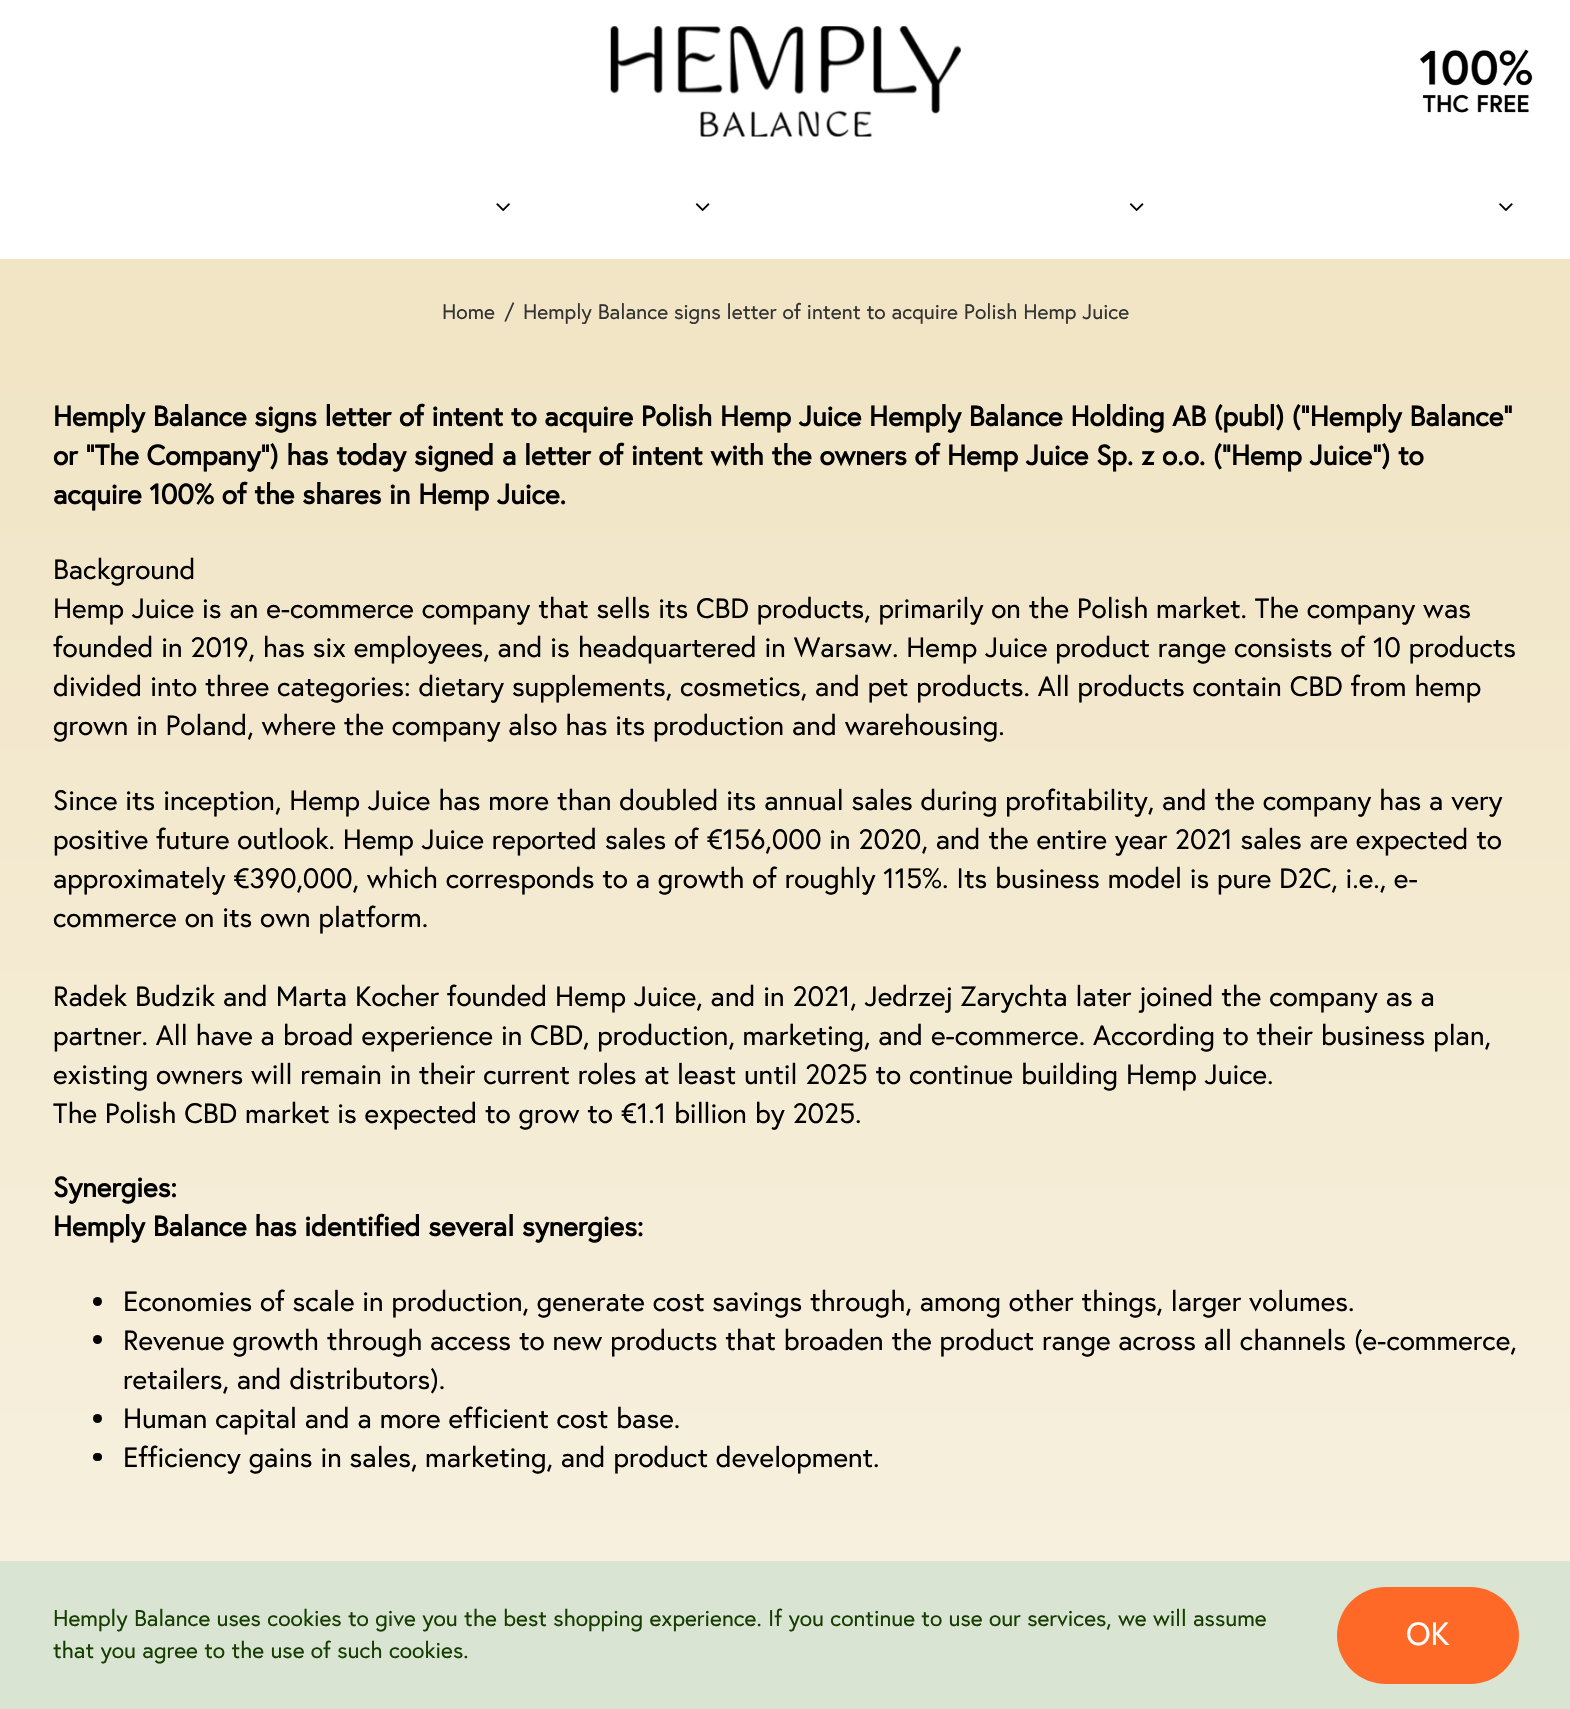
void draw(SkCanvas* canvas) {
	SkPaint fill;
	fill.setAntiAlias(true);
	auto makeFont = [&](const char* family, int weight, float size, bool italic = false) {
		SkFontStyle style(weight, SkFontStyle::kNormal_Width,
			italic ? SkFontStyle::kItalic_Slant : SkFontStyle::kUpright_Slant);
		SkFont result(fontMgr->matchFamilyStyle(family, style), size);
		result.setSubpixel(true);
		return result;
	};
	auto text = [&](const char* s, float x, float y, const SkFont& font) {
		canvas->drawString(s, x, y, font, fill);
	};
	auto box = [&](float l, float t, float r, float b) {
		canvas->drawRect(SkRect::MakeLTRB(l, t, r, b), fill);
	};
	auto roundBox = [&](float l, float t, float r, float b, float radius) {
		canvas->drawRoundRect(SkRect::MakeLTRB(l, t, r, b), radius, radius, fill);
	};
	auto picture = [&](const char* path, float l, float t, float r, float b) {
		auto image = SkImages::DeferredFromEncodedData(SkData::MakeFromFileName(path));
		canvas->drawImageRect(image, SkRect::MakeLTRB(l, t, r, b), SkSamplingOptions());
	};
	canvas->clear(0xFFFFFFFF);
	picture("image0.png", 610, 26, 961, 137);
	picture("image1.png", 1420, 49, 1533, 113);
	picture("image2.png", 496, 203, 510, 212);
	picture("image3.png", 695, 203, 710, 212);
	picture("image3.png", 1129, 203, 1144, 212);
	picture("image4.png", 1499, 203, 1513, 212);
	fill.setColor(0xFFF1E5C6);
	box(0, 259, 1570, 364);
	{
		const SkColor colors[] = {0xFFF1E5C6, 0xFFFFFFFF};
		const float stops[] = {0, 1};
		const SkPoint ends[] = {{786, 364}, {786, 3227}};
		fill.setShader(SkGradientShader::MakeLinear(ends, colors, stops, 2, SkTileMode::kClamp));
		fill.setAlpha(255);
	}
	box(0, 364, 1570, 1561);
	fill.setShader(nullptr);
	fill.setColor(0xFF000000);
	canvas->drawCircle(97.5f, 1301.5f, 4.5f, fill);
	canvas->drawCircle(97.5f, 1339.5f, 4.5f, fill);
	canvas->drawCircle(97.5f, 1418.5f, 4.5f, fill);
	roundBox(93, 1453, 102, 1461, 4);
	fill.setColor(0xFFD9E5D2);
	box(0, 1561, 1570, 1709);
	fill.setColor(0xFFFF6927);
	roundBox(1337, 1587, 1519, 1684, 48.5f);
	auto font1 = makeFont("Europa", 400, 21);
	fill.setColor(0xFF333333);
	text("Home", 442, 319, font1);
	text("/", 504, 319, font1);
	text("Hemply Balance signs letter of intent to acquire Polish Hemp Juice", 523, 319, font1);
	auto font2 = makeFont("Europa", 700, 28);
	fill.setColor(0xFF000000);
	text("Hemply Balance signs letter of intent to acquire Polish Hemp Juice Hemply Balance Holding AB (publ) (\"Hemply Balance\"", 53, 426, font2);
	text("or \"The Company\") has today signed a letter of intent with the owners of Hemp Juice Sp. z o.o. (\"Hemp Juice\") to", 53, 465, font2);
	text("acquire 100% of the shares in Hemp Juice.", 53, 504, font2);
	auto font3 = makeFont("Europa", 400, 28);
	text("Background", 53, 579, font3);
	text("Hemp Juice is an e-commerce company that sells its CBD products, primarily on the Polish market. The company was", 53, 618, font3);
	text("founded in 2019, has six employees, and is headquartered in Warsaw. Hemp Juice product range consists of 10 products", 53, 657, font3);
	text("divided into three categories: dietary supplements, cosmetics, and pet products. All products contain CBD from hemp", 53, 696, font3);
	text("grown in Poland, where the company also has its production and warehousing.", 53, 735, font3);
	text("Since its inception, Hemp Juice has more than doubled its annual sales during profitability, and the company has a very", 53, 810, font3);
	text("positive future outlook. Hemp Juice reported sales of €156,000 in 2020, and the entire year 2021 sales are expected to", 53, 849, font3);
	text("approximately €390,000, which corresponds to a growth of roughly 115%. Its business model is pure D2C, i.e., e-", 53, 888, font3);
	text("commerce on its own platform.", 53, 927, font3);
	text("Radek Budzik and Marta Kocher founded Hemp Juice, and in 2021, Jedrzej Zarychta later joined the company as a", 53, 1006, font3);
	text("partner. All have a broad experience in CBD, production, marketing, and e-commerce. According to their business plan,", 53, 1045, font3);
	text("existing owners will remain in their current roles at least until 2025 to continue building Hemp Juice.", 53, 1084, font3);
	text("The Polish CBD market is expected to grow to €1.1 billion by 2025.", 53, 1123, font3);
	text("Synergies:", 53, 1197, font2);
	text("Hemply Balance has identified several synergies:", 53, 1236, font2);
	text("Economies of scale in production, generate cost savings through, among other things, larger volumes.", 123, 1311, font3);
	text("Revenue growth through access to new products that broaden the product range across all channels (e-commerce,", 123, 1350, font3);
	text("retailers, and distributors).", 123, 1389, font3);
	text("Human capital and a more efficient cost base.", 123, 1428, font3);
	text("Efficiency gains in sales, marketing, and product development.", 123, 1467, font3);
	auto font4 = makeFont("Europa", 400, 22.75f);
	fill.setColor(0xFF163D00);
	text("Hemply Balance uses cookies to give you the best shopping experience. If you continue to use our services, we will assume", 53, 1626, font4);
	text("that you agree to the use of such cookies.", 53, 1658, font4);
	auto font5 = makeFont("Europa", 400, 32);
	fill.setColor(0xFFFFFFFF);
	text("OK", 1406, 1645, font5);
}
